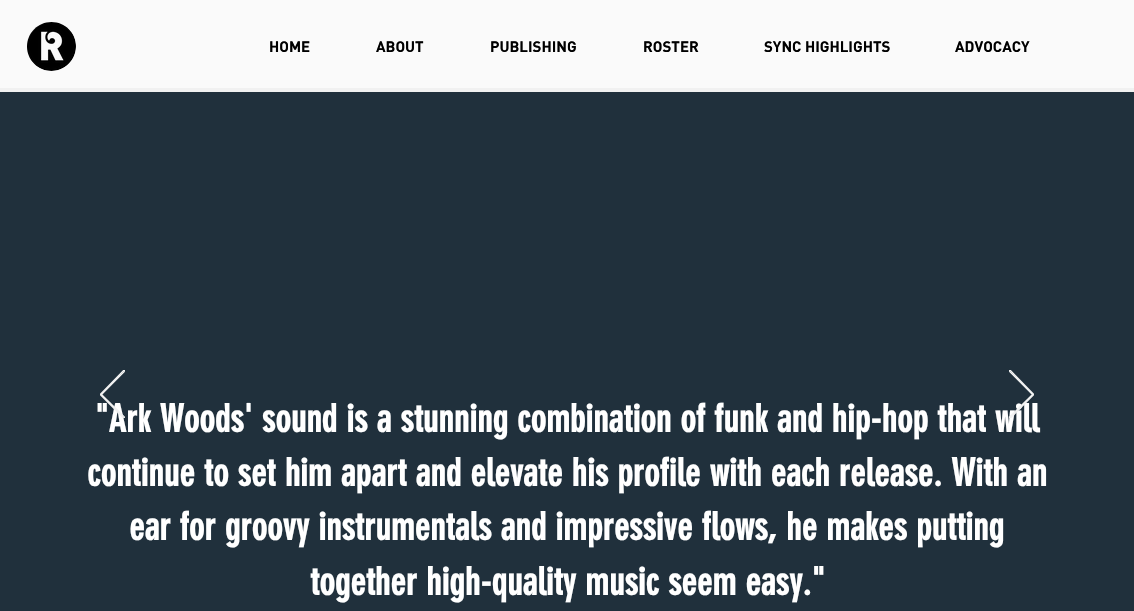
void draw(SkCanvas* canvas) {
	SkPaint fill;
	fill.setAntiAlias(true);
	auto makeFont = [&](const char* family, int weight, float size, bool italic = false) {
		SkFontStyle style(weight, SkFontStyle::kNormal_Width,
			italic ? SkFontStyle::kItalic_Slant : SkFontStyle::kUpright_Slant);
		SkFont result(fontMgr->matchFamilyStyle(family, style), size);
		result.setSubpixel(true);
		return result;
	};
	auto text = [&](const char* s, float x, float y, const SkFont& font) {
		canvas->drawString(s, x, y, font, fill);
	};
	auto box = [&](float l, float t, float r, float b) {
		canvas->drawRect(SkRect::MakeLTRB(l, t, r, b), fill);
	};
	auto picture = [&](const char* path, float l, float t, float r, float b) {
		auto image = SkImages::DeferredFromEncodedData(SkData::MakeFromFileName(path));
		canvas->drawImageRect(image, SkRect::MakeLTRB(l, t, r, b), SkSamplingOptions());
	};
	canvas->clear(0xFFF1F1F1);
	fill.setColor(0xFFFAFAFA);
	box(0, 0, 1134, 88);
	picture("image0.png", 27, 22, 76, 71);
	fill.setColor(0xFF20303C);
	box(0, 92, 1134, 611);
	auto font1 = makeFont("DIN", 700, 15);
	fill.setColor(0xFF000000);
	text("HOME", 269, 52, font1);
	text("ABOUT", 376, 52, font1);
	text("PUBLISHING", 490, 52, font1);
	text("ROSTER", 643, 52, font1);
	text("SYNC HIGHLIGHTS", 764, 52, font1);
	text("ADVOCACY", 955, 52, font1);
	auto font2 = makeFont("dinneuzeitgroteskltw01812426", 700, 38);
	fill.setColor(0xFFFFFFFF);
	text("\"Ark Woods' sound is a stunning combination of funk and hip-hop that will", 95, 432, font2);
	canvas->save();
	canvas->clipRect(SkRect::MakeLTRB(1009, 370, 1034, 418));
	fill.setStyle(SkPaint::kStroke_Style);
	fill.setStrokeWidth(1.2f);
	fill.setColor(0xFFF1F1F1);
	canvas->drawPath(SkPathBuilder().moveTo(1010, 418.5f).lineTo(1034, 394.5f).lineTo(1010, 370).lineTo(1009, 371).lineTo(1032.5f, 394.5f).lineTo(1009, 417.5f).close().detach(), fill);
	canvas->restore();
	canvas->save();
	canvas->clipRect(SkRect::MakeLTRB(100, 370, 125, 418));
	canvas->drawPath(SkPathBuilder().moveTo(124, 418.5f).lineTo(100, 394.5f).lineTo(124, 370).lineTo(125, 371).lineTo(101.5f, 394.5f).lineTo(125, 417.5f).close().detach(), fill);
	canvas->restore();
	fill.setStyle(SkPaint::kFill_Style);
	fill.setColor(0xFFFFFFFF);
	text("continue to set him apart and elevate his profile with each release. With an", 87, 486, font2);
	text("ear for groovy instrumentals and impressive flows, he makes putting", 129, 540, font2);
	text("together high-quality music seem easy.\"", 310, 595, font2);
}
